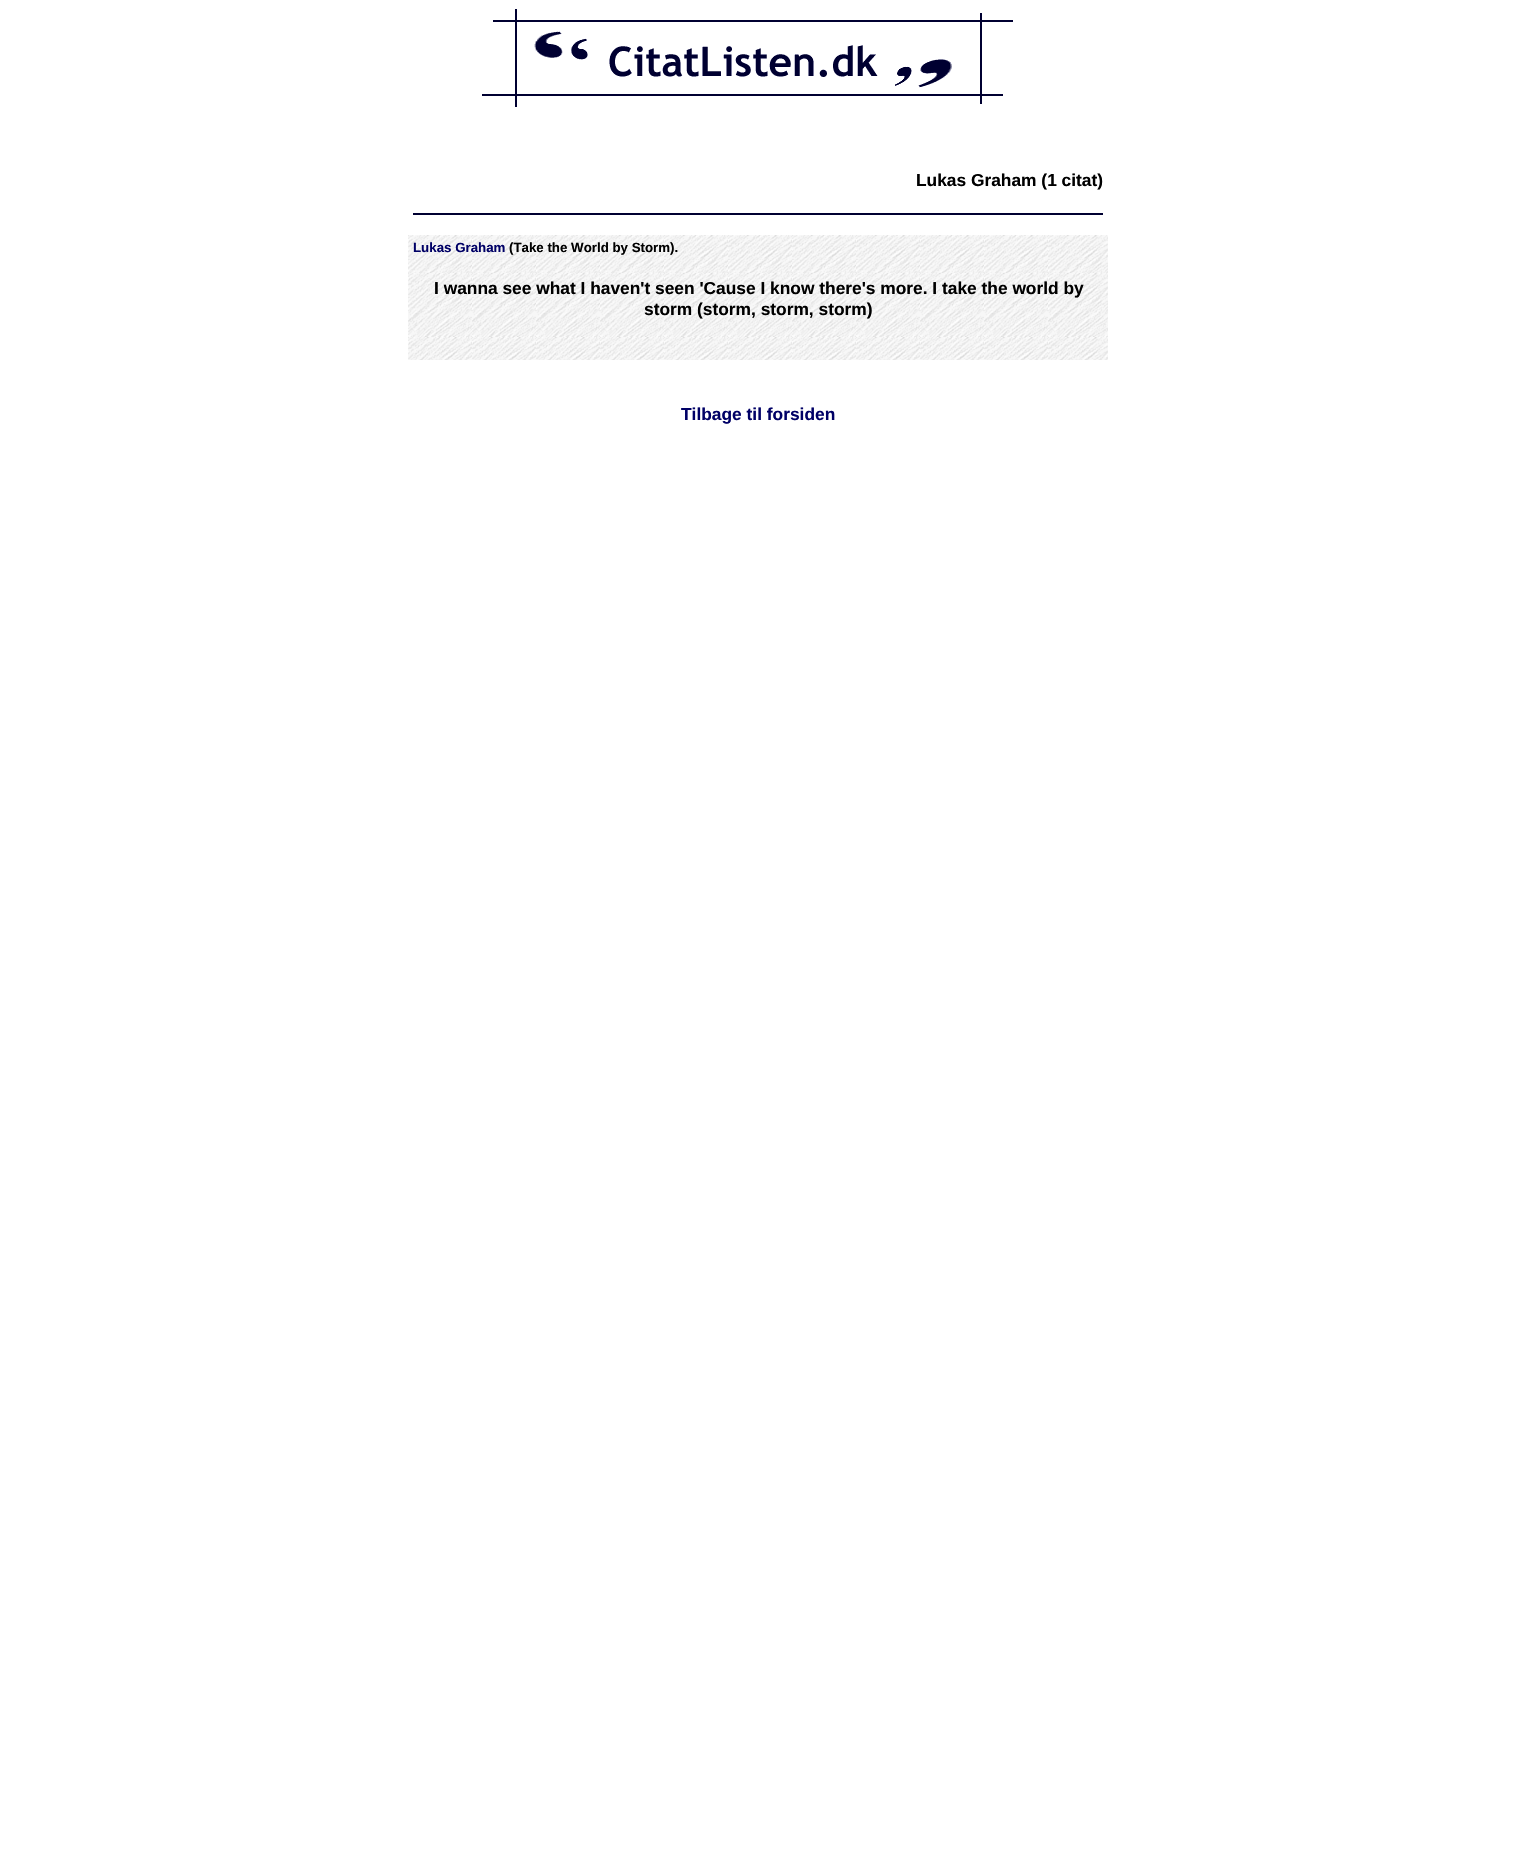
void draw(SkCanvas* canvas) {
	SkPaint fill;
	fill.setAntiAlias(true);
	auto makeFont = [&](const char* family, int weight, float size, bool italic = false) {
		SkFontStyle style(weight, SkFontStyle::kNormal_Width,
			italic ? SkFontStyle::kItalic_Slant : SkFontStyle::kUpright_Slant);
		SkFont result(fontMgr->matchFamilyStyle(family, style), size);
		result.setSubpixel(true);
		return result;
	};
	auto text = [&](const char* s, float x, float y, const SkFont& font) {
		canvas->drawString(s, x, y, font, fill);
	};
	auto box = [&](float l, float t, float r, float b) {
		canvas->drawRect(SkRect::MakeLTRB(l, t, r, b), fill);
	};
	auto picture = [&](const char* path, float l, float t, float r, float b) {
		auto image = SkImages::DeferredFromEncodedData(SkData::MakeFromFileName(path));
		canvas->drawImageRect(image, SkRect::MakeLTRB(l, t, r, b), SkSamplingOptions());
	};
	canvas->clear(0xFFFFFFFF);
	picture("image0.png", 482, 9, 1013, 107);
	fill.setColor(0xFF000031);
	box(413, 213, 1103, 215);
	picture("image1.png", 408, 235, 1108, 273);
	picture("image2.png", 408, 273, 1108, 360);
	auto font1 = makeFont("Liberation Sans", 700, 17.35f);
	fill.setColor(0xFF000000);
	text("Lukas Graham (1 citat)", 916, 186, font1);
	auto font2 = makeFont("Liberation Sans", 700, 13.3f);
	fill.setColor(0xFF000066);
	text("Lukas Graham", 413, 252, font2);
	fill.setColor(0xFF000000);
	text("(Take the World by Storm).", 509, 252, font2);
	text("I wanna see what I haven't seen 'Cause I know there's more. I take the world by", 434, 294, font1);
	text("storm (storm, storm, storm)", 644, 315, font1);
	fill.setColor(0xFF000066);
	text("Tilbage til forsiden", 681, 420, font1);
}
